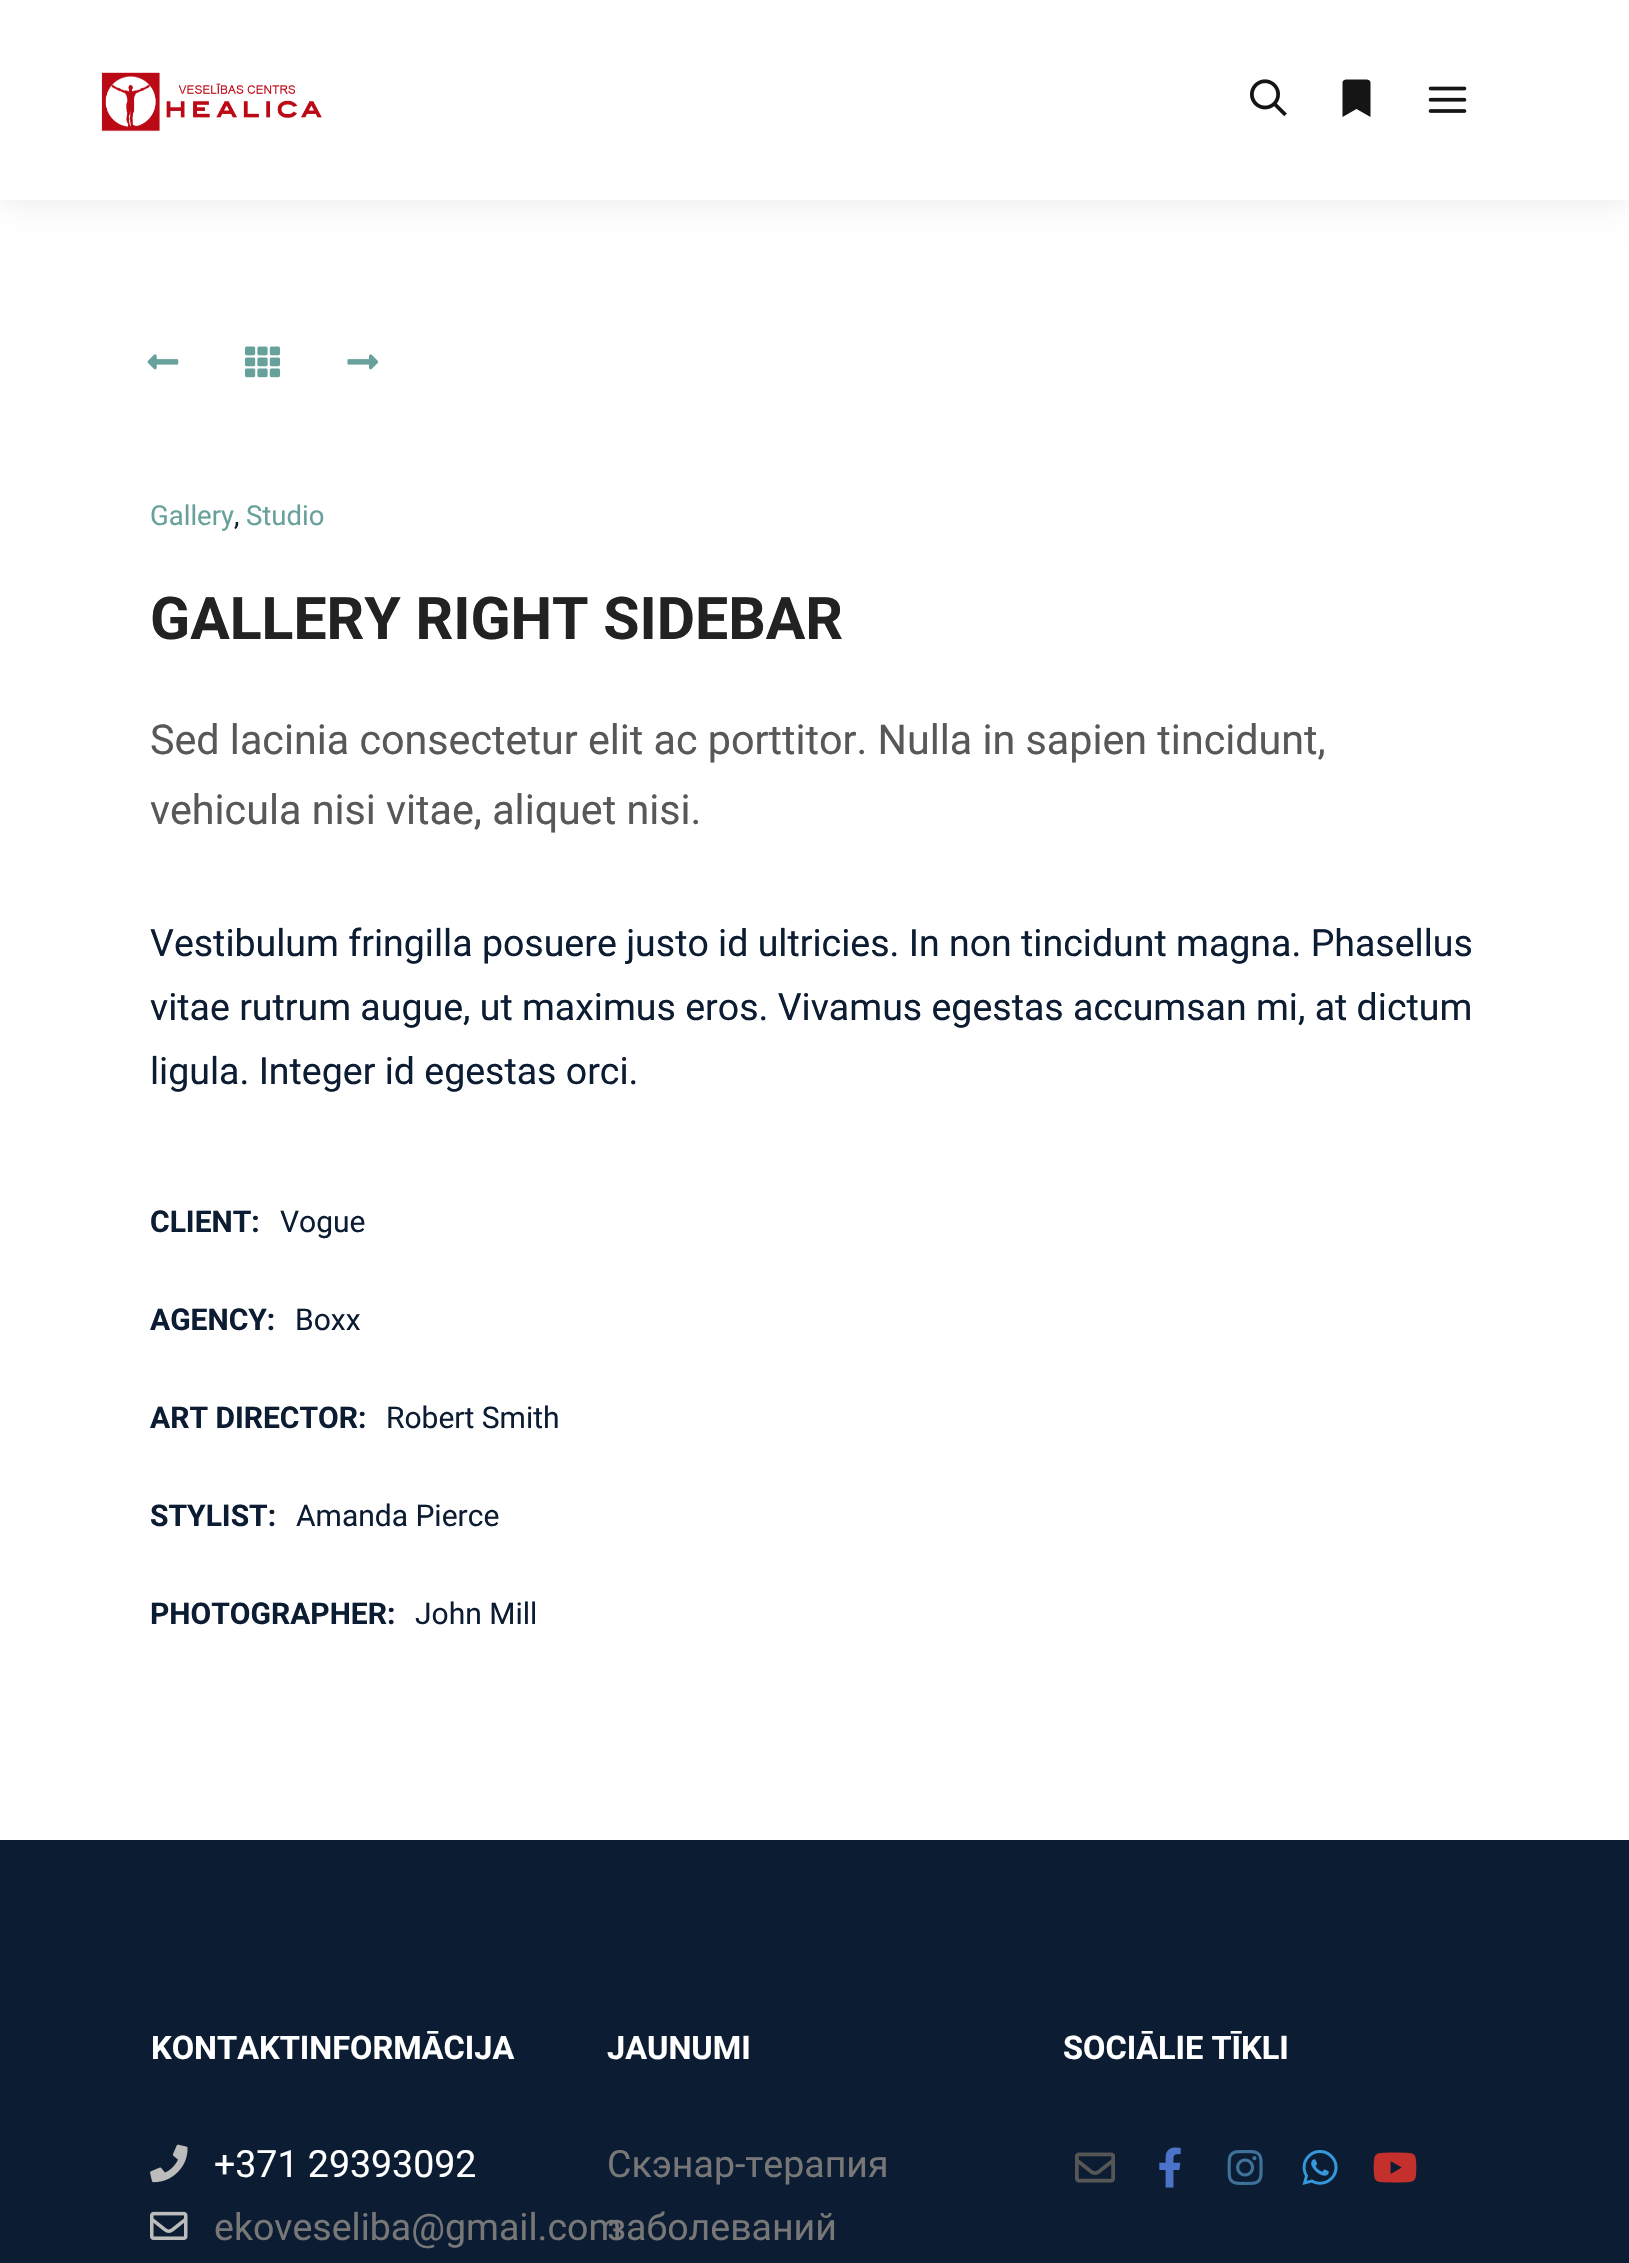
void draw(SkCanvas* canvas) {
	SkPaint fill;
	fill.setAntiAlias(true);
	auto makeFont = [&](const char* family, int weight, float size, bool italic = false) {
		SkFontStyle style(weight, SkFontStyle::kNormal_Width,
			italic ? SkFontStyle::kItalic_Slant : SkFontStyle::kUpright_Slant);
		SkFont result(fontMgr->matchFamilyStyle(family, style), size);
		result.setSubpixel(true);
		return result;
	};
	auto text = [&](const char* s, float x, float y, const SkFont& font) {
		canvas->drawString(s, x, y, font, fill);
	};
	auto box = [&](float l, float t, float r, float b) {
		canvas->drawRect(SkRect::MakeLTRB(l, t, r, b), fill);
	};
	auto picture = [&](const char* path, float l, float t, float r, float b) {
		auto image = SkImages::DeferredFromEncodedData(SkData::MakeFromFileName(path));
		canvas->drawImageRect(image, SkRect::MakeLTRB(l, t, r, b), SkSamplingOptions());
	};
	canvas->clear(0xFFFFFFFF);
	fill.setColor(0x17000000);
	fill.setMaskFilter(SkMaskFilter::MakeBlur(kNormal_SkBlurStyle, 15));
	canvas->drawRect(SkRect::MakeLTRB(0, 0, 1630, 200), fill);
	fill.setMaskFilter(nullptr);
	fill.setColor(0xFFFFFFFF);
	box(0, 0, 1629, 200);
	picture("image0.png", 101, 72, 322, 132);
	picture("image1.png", 1250, 79, 1287, 117);
	fill.setColor(0xFF151515);
	canvas->drawPath(SkPathBuilder().moveTo(1342.5f, 117).lineTo(1342.5f, 82.5f).cubicTo(1343, 79, 1347, 79.5f, 1349.5f, 79.5f).lineTo(1363.5f, 79.5f).cubicTo(1366, 79.5f, 1370, 79, 1370.5f, 82.5f).lineTo(1370.5f, 117).lineTo(1356.5f, 109).close().detach(), fill);
	picture("image2.png", 1428, 86, 1467, 113);
	picture("image3.png", 147, 354, 179, 370);
	picture("image4.png", 245, 346, 280, 378);
	picture("image5.png", 347, 354, 379, 370);
	fill.setColor(0xFF0C1C32);
	box(0, 1840, 1629, 2263);
	picture("image6.png", 150, 2144, 188, 2183);
	picture("image7.png", 150, 2211, 188, 2240);
	picture("image8.png", 1075, 2152, 1115, 2183);
	picture("image9.png", 1159, 2147, 1181, 2188);
	picture("image10.png", 1227, 2150, 1263, 2185);
	picture("image11.png", 1302, 2150, 1338, 2185);
	picture("image12.png", 1373, 2152, 1417, 2183);
	auto font1 = makeFont("Roboto", 400, 27.5f);
	fill.setColor(0xFF68A19B);
	text("Gallery", 150, 525, font1);
	fill.setColor(0xFF0C1C32);
	text(",", 234, 525, font1);
	fill.setColor(0xFF68A19B);
	text("Studio", 246, 525, font1);
	auto font2 = makeFont("Roboto", 700, 58.9f);
	fill.setColor(0xFF222222);
	text("GALLERY RIGHT SIDEBAR", 150, 639, font2);
	auto font3 = makeFont("Roboto", 400, 41.25f);
	fill.setColor(0xFF585858);
	text("Sed lacinia consectetur elit ac porttitor. Nulla in sapien tincidunt,", 150, 754, font3);
	text("vehicula nisi vitae, aliquet nisi.", 150, 824, font3);
	auto font4 = makeFont("Roboto", 400, 37.5f);
	fill.setColor(0xFF0C1C32);
	text("Vestibulum fringilla posuere justo id ultricies. In non tincidunt magna. Phasellus", 150, 956, font4);
	text("vitae rutrum augue, ut maximus eros. Vivamus egestas accumsan mi, at dictum", 150, 1020, font4);
	text("ligula. Integer id egestas orci.", 150, 1084, font4);
	auto font5 = makeFont("Roboto", 700, 30);
	text("CLIENT:", 150, 1232, font5);
	auto font6 = makeFont("Roboto", 400, 30);
	text("Vogue", 280, 1232, font6);
	text("AGENCY:", 150, 1330, font5);
	text("Boxx", 295, 1330, font6);
	text("ART DIRECTOR:", 150, 1428, font5);
	text("Robert Smith", 386, 1428, font6);
	text("STYLIST:", 150, 1526, font5);
	text("Amanda Pierce", 296, 1526, font6);
	text("PHOTOGRAPHER:", 150, 1624, font5);
	text("John Mill", 415, 1624, font6);
	auto font7 = makeFont("Roboto", 700, 32.5f);
	fill.setColor(0xFFFFFFFF);
	text("KONTAKTINFORMĀCIJA", 151, 2059, font7);
	text("+371 29393092", 214, 2177, font4);
	text("JAUNUMI", 607, 2059, font7);
	fill.setColor(0xFF777777);
	text("Скэнар-терапия", 607, 2177, font4);
	text("заболеваний", 607, 2240, font4);
	text("ekoveseliba@gmail.com", 214, 2240, font4);
	fill.setColor(0xFFFFFFFF);
	text("SOCIĀLIE TĪKLI", 1063, 2059, font7);
}
